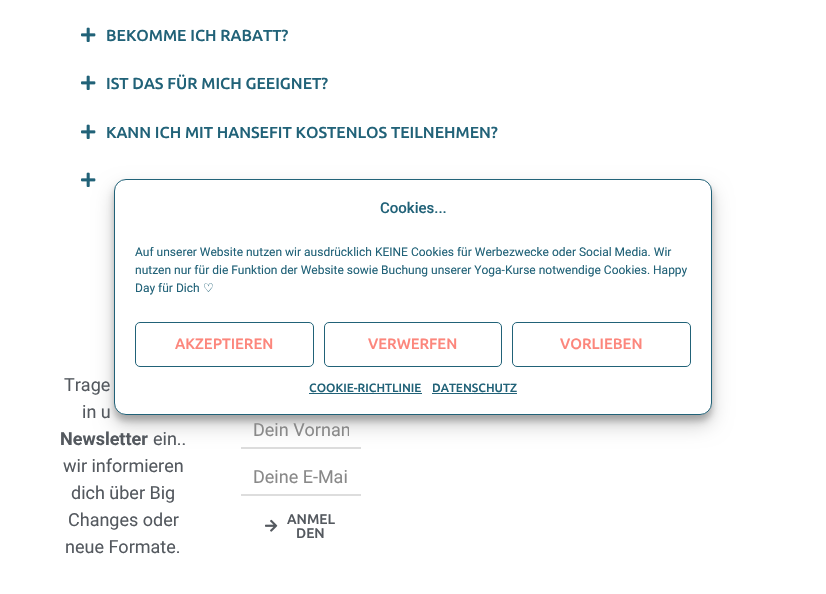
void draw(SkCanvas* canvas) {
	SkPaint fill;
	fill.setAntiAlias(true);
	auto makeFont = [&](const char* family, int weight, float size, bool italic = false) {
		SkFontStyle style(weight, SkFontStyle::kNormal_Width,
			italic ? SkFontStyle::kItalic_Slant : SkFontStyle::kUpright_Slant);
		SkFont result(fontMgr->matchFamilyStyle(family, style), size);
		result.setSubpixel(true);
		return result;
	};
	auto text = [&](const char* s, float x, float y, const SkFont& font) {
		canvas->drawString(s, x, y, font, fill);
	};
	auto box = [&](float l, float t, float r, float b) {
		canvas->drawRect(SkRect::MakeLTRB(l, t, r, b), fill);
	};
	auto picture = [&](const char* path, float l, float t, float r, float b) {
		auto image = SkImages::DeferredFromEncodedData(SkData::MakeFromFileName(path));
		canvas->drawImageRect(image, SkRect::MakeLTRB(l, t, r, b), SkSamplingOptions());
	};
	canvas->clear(0xFFFFFFFF);
	picture("image0.png", 81, 27, 96, 42);
	picture("image0.png", 81, 75, 96, 90);
	picture("image0.png", 81, 124, 96, 139);
	picture("image0.png", 81, 172, 96, 187);
	fill.setColor(0xFFDDDDDD);
	box(241, 447, 361, 449);
	box(241, 494, 361, 496);
	picture("image1.png", 265, 519, 278, 532);
	fill.setColor(0x3B000000);
	fill.setMaskFilter(SkMaskFilter::MakeBlur(kNormal_SkBlurStyle, 3));
	canvas->drawRoundRect(SkRect::MakeLTRB(114, 185, 712, 421), 12, 12, fill);
	fill.setMaskFilter(nullptr);
	fill.setColor(0x30000000);
	fill.setMaskFilter(SkMaskFilter::MakeBlur(kNormal_SkBlurStyle, 10));
	canvas->drawRoundRect(SkRect::MakeLTRB(114, 189, 712, 425), 12, 12, fill);
	fill.setMaskFilter(nullptr);
	fill.setColor(0xFFFFFFFF);
	canvas->drawRoundRect(SkRect::MakeLTRB(114.5f, 179.5f, 711.5f, 414.5f), 11.5f, 11.5f, fill);
	fill.setStyle(SkPaint::kStroke_Style);
	fill.setStrokeWidth(1);
	fill.setColor(0xFF216278);
	canvas->drawRoundRect(SkRect::MakeLTRB(114.5f, 179.5f, 711.5f, 414.5f), 11.5f, 11.5f, fill);
	canvas->drawRoundRect(SkRect::MakeLTRB(135.5f, 322.5f, 313.5f, 366.5f), 4.5f, 4.5f, fill);
	canvas->drawRoundRect(SkRect::MakeLTRB(324.5f, 322.5f, 501.5f, 366.5f), 4.5f, 4.5f, fill);
	canvas->drawRoundRect(SkRect::MakeLTRB(512.5f, 322.5f, 690.5f, 366.5f), 4.5f, 4.5f, fill);
	fill.setStyle(SkPaint::kFill_Style);
	box(309, 393, 422, 394);
	box(432, 393, 517, 394);
	auto font1 = makeFont("Ubuntu", 500, 16);
	text("BEKOMME ICH RABATT?", 106, 41, font1);
	text("IST DAS FÜR MICH GEEIGNET?", 106, 89, font1);
	text("KANN ICH MIT HANSEFIT KOSTENLOS TEILNEHMEN?", 106, 138, font1);
	auto font2 = makeFont("Roboto", 400, 18);
	fill.setColor(0xFF54595F);
	text("Trage", 64, 391, font2);
	text("in u", 82, 418, font2);
	auto font3 = makeFont("Roboto", 700, 18);
	text("Newsletter", 60, 445, font3);
	text("ein..", 153, 445, font2);
	text("wir informieren", 63, 472, font2);
	text("dich über Big", 71, 499, font2);
	text("Changes oder", 68, 526, font2);
	text("neue Formate.", 65, 553, font2);
	canvas->save();
	canvas->clipRect(SkRect::MakeLTRB(253, 419, 349, 440));
	fill.setColor(0xFF898989);
	text("Dein Vornam", 253, 436, font2);
	canvas->restore();
	text("Deine E-Mai", 253, 483, font2);
	auto font4 = makeFont("Ubuntu", 500, 14);
	fill.setColor(0xFF54595F);
	text("ANMEL", 287, 524, font4);
	text("DEN", 296, 538, font4);
	auto font5 = makeFont("Roboto", 500, 15);
	fill.setColor(0xFF216278);
	text("Cookies...", 380, 213, font5);
	auto font6 = makeFont("Roboto", 400, 12);
	text("Auf unserer Website nutzen wir ausdrücklich KEINE Cookies für Werbezwecke oder Social Media. Wir", 135, 256, font6);
	text("nutzen nur für die Funktion der Website sowie Buchung unserer Yoga-Kurse notwendige Cookies. Happy", 135, 274, font6);
	text("Day für Dich", 135, 292, font6);
	auto font7 = makeFont("DejaVu Sans", 400, 12);
	text("♡", 203, 292, font7);
	auto font8 = makeFont("Ubuntu", 500, 15);
	fill.setColor(0xFFFC867C);
	text("AKZEPTIEREN", 175, 349, font8);
	text("VERWERFEN", 368, 349, font8);
	text("VORLIEBEN", 560, 349, font8);
	auto font9 = makeFont("Ubuntu", 500, 12);
	fill.setColor(0xFF216278);
	text("COOKIE-RICHTLINIE", 309, 392, font9);
	text("DATENSCHUTZ", 432, 392, font9);
}
